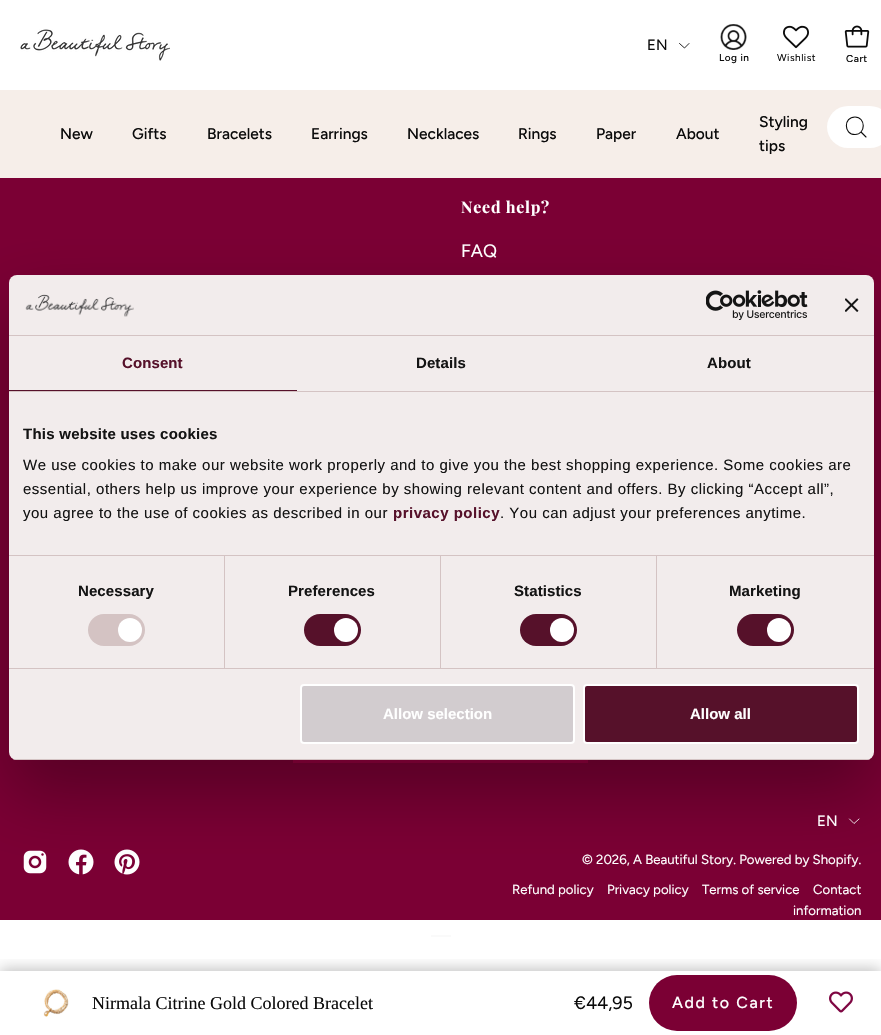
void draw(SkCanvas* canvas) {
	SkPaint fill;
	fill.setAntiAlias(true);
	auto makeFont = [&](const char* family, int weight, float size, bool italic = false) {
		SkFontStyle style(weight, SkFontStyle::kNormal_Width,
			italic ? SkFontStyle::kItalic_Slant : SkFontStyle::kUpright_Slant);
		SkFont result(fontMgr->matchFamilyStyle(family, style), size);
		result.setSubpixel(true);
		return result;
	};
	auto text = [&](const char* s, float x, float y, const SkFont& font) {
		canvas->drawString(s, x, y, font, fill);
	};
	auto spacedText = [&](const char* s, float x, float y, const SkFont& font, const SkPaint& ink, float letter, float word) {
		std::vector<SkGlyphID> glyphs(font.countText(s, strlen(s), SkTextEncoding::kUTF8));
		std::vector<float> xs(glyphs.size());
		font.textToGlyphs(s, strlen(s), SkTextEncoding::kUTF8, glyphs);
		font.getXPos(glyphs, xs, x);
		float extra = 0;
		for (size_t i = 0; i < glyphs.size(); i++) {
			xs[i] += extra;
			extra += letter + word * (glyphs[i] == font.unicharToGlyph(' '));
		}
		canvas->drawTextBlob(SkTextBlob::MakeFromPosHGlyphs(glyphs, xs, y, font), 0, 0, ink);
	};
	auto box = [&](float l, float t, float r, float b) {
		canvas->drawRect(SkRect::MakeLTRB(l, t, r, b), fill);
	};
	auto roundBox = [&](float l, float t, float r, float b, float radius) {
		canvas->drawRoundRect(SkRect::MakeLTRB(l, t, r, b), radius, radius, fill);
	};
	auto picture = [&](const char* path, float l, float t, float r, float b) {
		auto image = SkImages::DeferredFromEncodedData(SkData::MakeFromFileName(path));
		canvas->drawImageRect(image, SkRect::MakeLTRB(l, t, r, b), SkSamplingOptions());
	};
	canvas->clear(0xFFFFFFFF);
	picture("image0.png", 20, 29, 170, 61);
	fill.setStyle(SkPaint::kStroke_Style);
	fill.setStrokeWidth(0.9f);
	fill.setStrokeCap(SkPaint::kRound_Cap);
	fill.setStrokeJoin(SkPaint::kRound_Join);
	fill.setColor(0xFF0B0B0B);
	canvas->drawPath(SkPathBuilder().moveTo(689, 43.5f).lineTo(684.5f, 48).lineTo(679.5f, 43.5f).detach(), fill);
	picture("image1.png", 720, 24, 747, 50);
	picture("image2.png", 783, 25, 809, 49);
	picture("image3.png", 844, 25, 870, 48);
	fill.setStyle(SkPaint::kFill_Style);
	fill.setColor(0xFFF6EEE9);
	box(0, 90, 881, 178);
	fill.setColor(0xFFFFFFFF);
	roundBox(827, 106, 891, 148, 21);
	fill.setStyle(SkPaint::kStroke_Style);
	fill.setStrokeWidth(1.1f);
	fill.setColor(0xFF0B0B0B);
	canvas->drawPath(SkPathBuilder().moveTo(855, 134.5f).cubicTo(866, 134.5f, 866, 117, 855, 117).cubicTo(843.5f, 117, 843.5f, 134.5f, 855, 134.5f).close().moveTo(861, 132).lineTo(866, 137).detach(), fill);
	fill.setStyle(SkPaint::kFill_Style);
	fill.setColor(0xFF7B0034);
	box(0, 178, 881, 920);
	fill.setColor(0xFF95003F);
	box(293, 760, 588, 763);
	picture("image4.png", 23, 850, 47, 874);
	picture("image5.png", 68, 849, 94, 875);
	picture("image6.png", 114, 849, 140, 875);
	fill.setStyle(SkPaint::kStroke_Style);
	fill.setStrokeWidth(0.9f);
	fill.setColor(0xFFFFFFFF);
	canvas->drawPath(SkPathBuilder().moveTo(859, 819).lineTo(854, 823.5f).lineTo(849.5f, 819).detach(), fill);
	fill.setStyle(SkPaint::kFill_Style);
	fill.setColor(0x4D000000);
	fill.setMaskFilter(SkMaskFilter::MakeBlur(kNormal_SkBlurStyle, 34));
	canvas->drawRoundRect(SkRect::MakeLTRB(9, 307, 874, 792), 8, 8, fill);
	fill.setMaskFilter(nullptr);
	fill.setColor(0xFFF2ECEC);
	roundBox(9, 275, 874, 760, 8);
	fill.setColor(0xFFD4C3C3);
	box(9, 335, 874, 336);
	picture("image7.png", 25, 294, 134, 317);
	picture("image8.png", 706, 290, 808, 320);
	picture("image9.png", 845, 298, 859, 312);
	box(9, 391, 874, 392);
	fill.setColor(0xFF56112A);
	box(9, 390, 297, 391);
	fill.setColor(0xFFD4C3C3);
	box(9, 555, 874, 556);
	box(9, 668, 874, 669);
	box(224, 556, 225, 668);
	roundBox(88, 614, 145, 646, 16);
	fill.setColor(0xFFFFFFFF);
	canvas->drawCircle(130, 630, 12, fill);
	fill.setColor(0xFFD4C3C3);
	box(440, 556, 441, 668);
	fill.setColor(0xFF56112A);
	roundBox(304, 614, 361, 646, 16);
	fill.setColor(0xFFFFFFFF);
	canvas->drawCircle(346, 630, 12, fill);
	fill.setColor(0xFFD4C3C3);
	box(656, 556, 657, 668);
	fill.setColor(0xFF56112A);
	roundBox(520, 614, 577, 646, 16);
	fill.setColor(0xFFFFFFFF);
	canvas->drawCircle(562, 630, 12, fill);
	fill.setColor(0xFF56112A);
	roundBox(737, 614, 794, 646, 16);
	fill.setColor(0xFFFFFFFF);
	canvas->drawCircle(779, 630, 12, fill);
	canvas->save();
	canvas->clipPath(SkPathBuilder().moveTo(17, 275).lineTo(866, 275).cubicTo(870.5f, 275, 874, 278.5f, 874, 283).lineTo(874, 752).cubicTo(874, 756.5f, 870.5f, 760, 866, 760).lineTo(17, 760).cubicTo(12.5f, 760, 9, 756.5f, 9, 752).lineTo(9, 283).cubicTo(9, 278.5f, 12.5f, 275, 17, 275).close().detach(), true);
	fill.setColor(0xFFD4C3C3);
	box(9, 759, 874, 760);
	canvas->restore();
	fill.setColor(0xFFD2CCCF);
	canvas->drawRoundRect(SkRect::MakeLTRB(301, 685, 574, 743), 3, 3, fill);
	fill.setStyle(SkPaint::kStroke_Style);
	fill.setStrokeWidth(2);
	fill.setStrokeCap(SkPaint::kButt_Cap);
	fill.setStrokeJoin(SkPaint::kMiter_Join);
	fill.setColor(0xFFFFFFFF);
	canvas->drawRoundRect(SkRect::MakeLTRB(301, 685, 574, 743), 3, 3, fill);
	fill.setStyle(SkPaint::kFill_Style);
	fill.setColor(0xFF56112A);
	canvas->drawRoundRect(SkRect::MakeLTRB(584, 685, 858, 743), 3, 3, fill);
	fill.setStyle(SkPaint::kStroke_Style);
	fill.setColor(0xFFFFFFFF);
	canvas->drawRoundRect(SkRect::MakeLTRB(584, 685, 858, 743), 3, 3, fill);
	fill.setStyle(SkPaint::kFill_Style);
	fill.setColor(0xFFFAFAFA);
	box(431, 935, 451, 937);
	canvas->save();
	canvas->clipRect(SkRect::MakeLTRB(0, 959, 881, 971));
	fill.setColor(0x40000000);
	fill.setMaskFilter(SkMaskFilter::MakeBlur(kNormal_SkBlurStyle, 7));
	canvas->drawRect(SkRect::MakeLTRB(0, 969, 881, 1033), fill);
	fill.setMaskFilter(nullptr);
	canvas->restore();
	picture("image10.png", 43, 989, 69, 1017);
	fill.setColor(0xFF7B0034);
	roundBox(649, 975, 797, 1031, 28);
	picture("image11.png", 829, 991, 853, 1013);
	auto font1 = makeFont("Figtree", 400, 15);
	fill.setColor(0xFF0B0B0B);
	text("EN", 647, 50, font1);
	auto font2 = makeFont("Figtree", 500, 10);
	spacedText("Log in", 719, 61, font2, fill, 0.5f, 0);
	auto font3 = makeFont("Figtree", 400, 10);
	spacedText("Wishlist", 777, 61, font3, fill, 0.5f, 0);
	spacedText("Cart", 846, 62, font2, fill, 0.5f, 0);
	auto font4 = makeFont("Figtree", 500, 15.5f);
	text("New", 60, 139, font4);
	text("Gifts", 132, 139, font4);
	text("Bracelets", 207, 139, font4);
	text("Earrings", 311, 139, font4);
	text("Necklaces", 407, 139, font4);
	text("Rings", 518, 139, font4);
	text("Paper", 596, 139, font4);
	text("About", 676, 139, font4);
	text("Styling", 759, 127, font4);
	text("tips", 759, 151, font4);
	auto font5 = makeFont("Playfair Display", 700, 16);
	fill.setColor(0xFFFFFFFF);
	spacedText("Need help?", 461, 213, font5, fill, 0.75f, 0);
	auto font6 = makeFont("Figtree", 400, 18);
	text("FAQ", 461, 257, font6);
	text("EN", 817, 826, font1);
	auto font7 = makeFont("Figtree", 400, 13.2f);
	text("© 2026, A Beautiful Story. Powered by Shopify.", 582, 864, font7);
	text("Refund policy", 512, 894, font7);
	text("Privacy policy", 607, 894, font7);
	text("Terms of service", 702, 894, font7);
	text("Contact", 813, 894, font7);
	text("information", 793, 915, font7);
	auto font8 = makeFont("Liberation Sans", 700, 15);
	fill.setColor(0xFF56112A);
	spacedText("Consent", 122, 368, font8, fill, 0.1f, 0);
	fill.setColor(0xFF141414);
	spacedText("Details", 416, 368, font8, fill, 0.1f, 0);
	spacedText("About", 707, 368, font8, fill, 0.1f, 0);
	spacedText("This website uses cookies", 23, 439, font8, fill, 0.25f, 0);
	auto font9 = makeFont("Liberation Sans", 400, 15);
	spacedText("We use cookies to make our website work properly and to give you the best shopping experience. Some cookies are", 23, 470, font9, fill, 0.5f, 0);
	spacedText("essential, others help us improve your experience by showing relevant content and offers. By clicking “Accept all”,", 23, 494, font9, fill, 0.5f, 0);
	spacedText("you agree to the use of cookies as described in our", 23, 518, font9, fill, 0.5f, 0);
	fill.setColor(0xFF56112A);
	spacedText("privacy policy", 393, 518, font8, fill, 0.5f, 0);
	fill.setColor(0xFF141414);
	spacedText(". You can adjust your preferences anytime.", 500, 518, font9, fill, 0.5f, 0);
	spacedText("Necessary", 78, 596, font8, fill, 0.1f, 0);
	spacedText("Preferences", 288, 596, font8, fill, 0.1f, 0);
	spacedText("Statistics", 514, 596, font8, fill, 0.1f, 0);
	spacedText("Marketing", 729, 596, font8, fill, 0.1f, 0);
	fill.setColor(0xFFFFFFFF);
	text("Allow selection", 383, 719, font8);
	text("Allow all", 690, 719, font8);
	auto font10 = makeFont("Liberation Serif", 400, 18);
	fill.setColor(0xFF0B0B0B);
	text("Nirmala Citrine Gold Colored Bracelet", 92, 1009, font10);
	text("€44,95", 574, 1009, font6);
	auto font11 = makeFont("Figtree", 500, 16);
	fill.setColor(0xFFFFFFFF);
	spacedText("Add to Cart", 672, 1008, font11, fill, 1.6f, 0);
}
